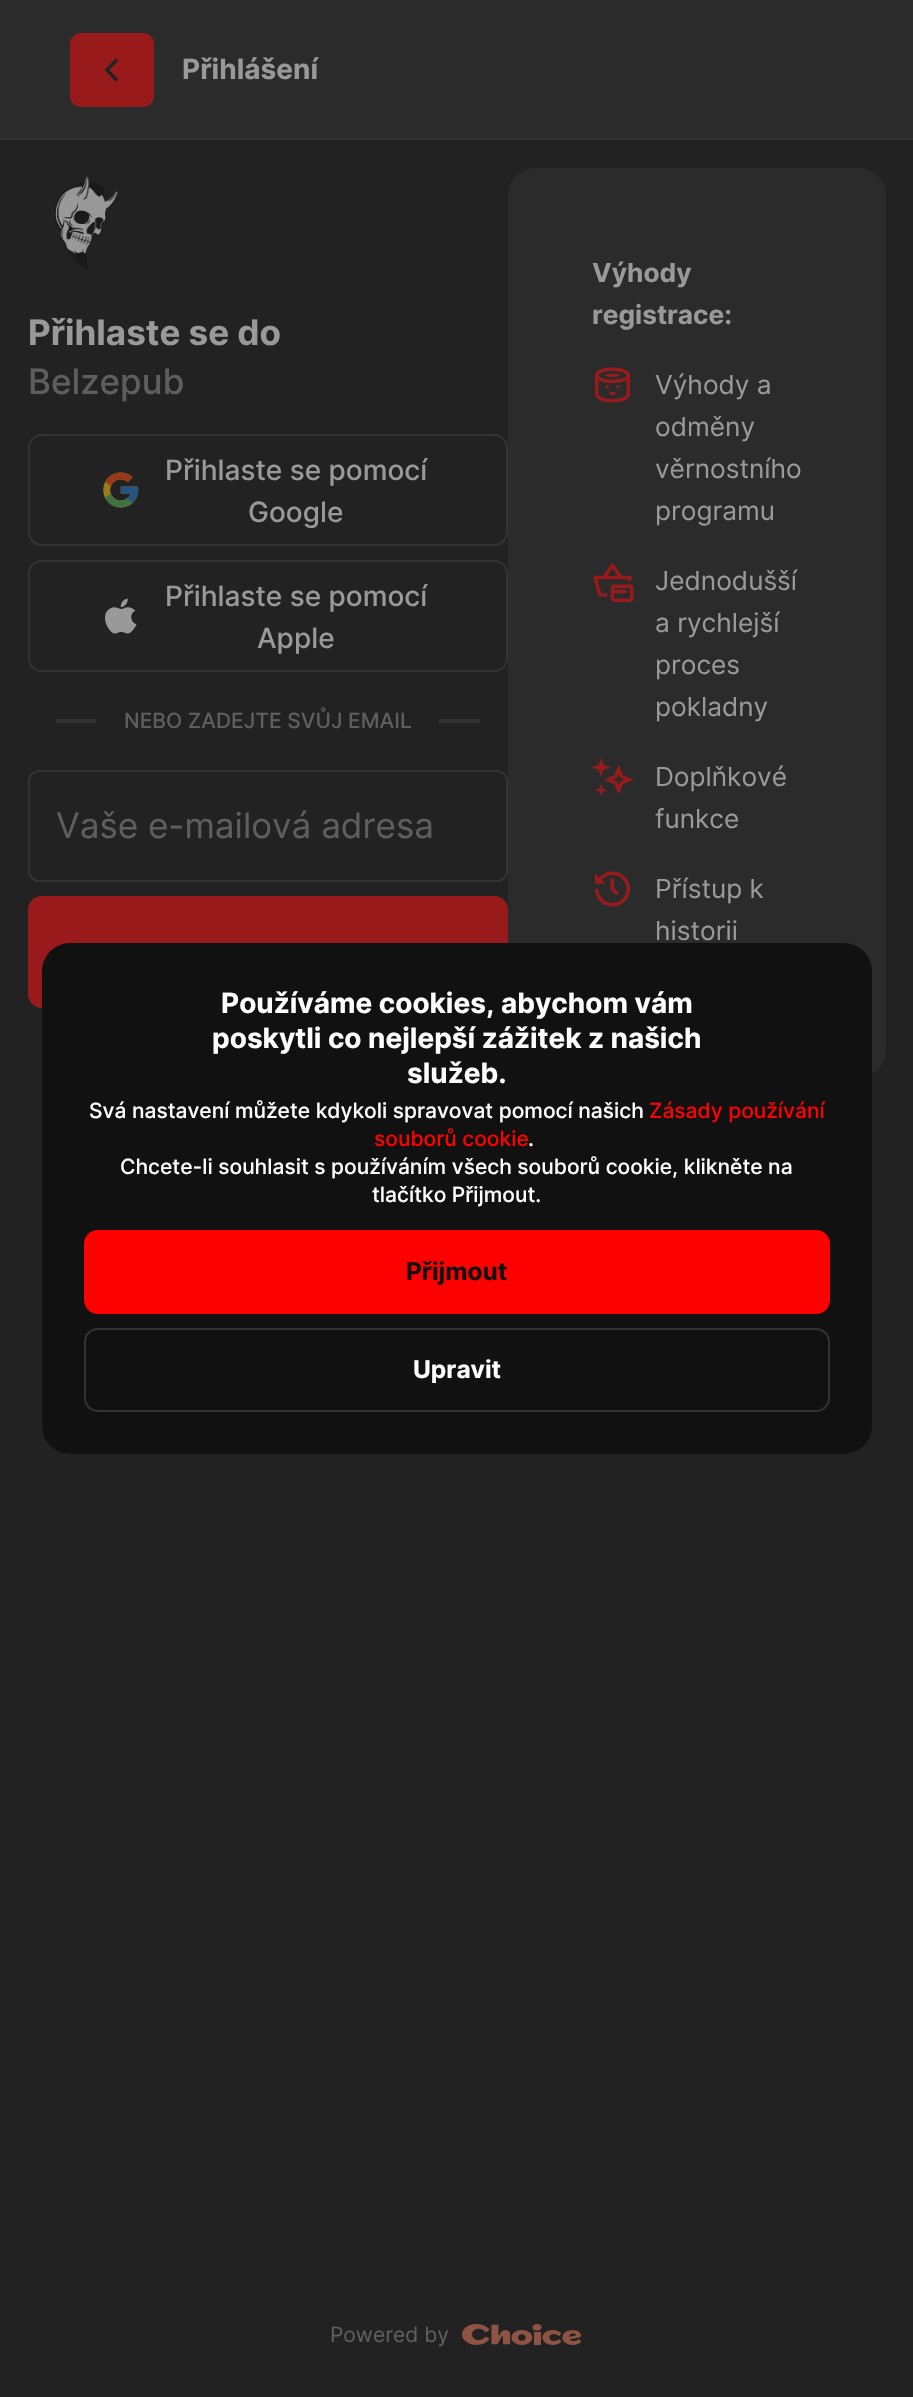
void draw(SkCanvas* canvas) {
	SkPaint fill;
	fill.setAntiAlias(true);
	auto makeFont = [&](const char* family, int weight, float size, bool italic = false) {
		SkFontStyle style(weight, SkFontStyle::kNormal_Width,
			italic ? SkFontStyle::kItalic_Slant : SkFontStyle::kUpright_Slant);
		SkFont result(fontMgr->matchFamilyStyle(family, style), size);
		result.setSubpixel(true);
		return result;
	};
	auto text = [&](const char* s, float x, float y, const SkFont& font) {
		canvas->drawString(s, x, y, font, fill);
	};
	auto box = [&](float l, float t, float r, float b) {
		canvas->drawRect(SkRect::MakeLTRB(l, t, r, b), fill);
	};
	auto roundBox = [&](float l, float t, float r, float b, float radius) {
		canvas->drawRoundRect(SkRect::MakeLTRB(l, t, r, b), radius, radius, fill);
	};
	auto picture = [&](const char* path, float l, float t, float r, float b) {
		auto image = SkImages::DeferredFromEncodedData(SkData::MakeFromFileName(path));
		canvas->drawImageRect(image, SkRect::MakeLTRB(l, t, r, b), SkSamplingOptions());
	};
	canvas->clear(0xFF222222);
	fill.setColor(0xFF2B2B2B);
	box(0, 0, 913, 138);
	fill.setColor(0xFF333333);
	box(0, 138, 913, 140);
	fill.setColor(0xFF981A1A);
	roundBox(70, 33, 154, 107, 11);
	fill.setStyle(SkPaint::kStroke_Style);
	fill.setStrokeWidth(3.5f);
	fill.setColor(0xFF222222);
	canvas->drawPath(SkPathBuilder().moveTo(117, 59.5f).lineTo(107, 70).lineTo(117, 80.5f).detach(), fill);
	picture("image0.png", 54, 176, 119, 269);
	fill.setStrokeWidth(2);
	fill.setColor(0xFF333333);
	canvas->drawRoundRect(SkRect::MakeLTRB(29, 435, 507, 545), 13, 13, fill);
	picture("image1.png", 103, 472, 139, 508);
	canvas->drawRoundRect(SkRect::MakeLTRB(29, 561, 507, 671), 13, 13, fill);
	picture("image2.png", 105, 598, 137, 634);
	fill.setStyle(SkPaint::kFill_Style);
	box(56, 719, 480, 723);
	fill.setColor(0xFF222222);
	box(96, 719, 439, 723);
	fill.setStyle(SkPaint::kStroke_Style);
	fill.setColor(0xFF333333);
	canvas->drawRoundRect(SkRect::MakeLTRB(29, 771, 507, 881), 10, 10, fill);
	fill.setStyle(SkPaint::kFill_Style);
	fill.setColor(0xFF981A1A);
	roundBox(28, 896, 508, 1008, 14);
	fill.setColor(0xFF2B2B2B);
	roundBox(508, 168, 886, 1078, 28);
	picture("image3.png", 595, 367, 630, 403);
	picture("image4.png", 593, 563, 634, 602);
	picture("image5.png", 592, 758, 634, 796);
	picture("image6.png", 595, 871, 630, 907);
	picture("image7.png", 462, 2324, 582, 2345);
	fill.setColor(0xFF111111);
	roundBox(42, 943, 872, 1454, 28);
	fill.setColor(0xFFFD0100);
	roundBox(84, 1230, 830, 1314, 14);
	fill.setStyle(SkPaint::kStroke_Style);
	fill.setColor(0xFF333333);
	canvas->drawRoundRect(SkRect::MakeLTRB(85, 1329, 829, 1411), 13, 13, fill);
	auto font1 = makeFont("Inter", 700, 28);
	fill.setStyle(SkPaint::kFill_Style);
	fill.setColor(0xFF999999);
	text("Přihlášení", 182, 79, font1);
	auto font2 = makeFont("Inter", 700, 35);
	text("Přihlaste se do", 28, 345, font2);
	auto font3 = makeFont("Inter", 500, 35);
	fill.setColor(0xFF5E5E5E);
	text("Belzepub", 28, 394, font3);
	auto font4 = makeFont("Inter", 500, 28);
	fill.setColor(0xFF999999);
	text("Přihlaste se pomocí", 165, 480, font4);
	text("Google", 248, 522, font4);
	text("Přihlaste se pomocí", 165, 606, font4);
	text("Apple", 257, 648, font4);
	auto font5 = makeFont("Inter", 500, 21);
	fill.setColor(0xFF5E5E5E);
	text("NEBO ZADEJTE SVŮJ EMAIL", 124, 728, font5);
	auto font6 = makeFont("Inter", 400, 35);
	text("Vaše e-mailová adresa", 56, 838, font6);
	auto font7 = makeFont("Inter", 700, 26.25f);
	fill.setColor(0xFF999999);
	text("Výhody", 592, 282, font7);
	text("registrace:", 592, 324, font7);
	auto font8 = makeFont("Inter", 400, 26.25f);
	text("Výhody a", 655, 394, font8);
	text("odměny", 655, 436, font8);
	text("věrnostního", 655, 478, font8);
	text("programu", 655, 520, font8);
	text("Jednodušší", 655, 590, font8);
	text("a rychlejší", 655, 632, font8);
	text("proces", 655, 674, font8);
	text("pokladny", 655, 716, font8);
	text("Doplňkové", 655, 786, font8);
	text("funkce", 655, 828, font8);
	text("Přístup k", 655, 898, font8);
	text("historii", 655, 940, font8);
	auto font9 = makeFont("Inter", 400, 21);
	fill.setColor(0xFF5E5E5E);
	text("Powered by", 330, 2342, font9);
	fill.setColor(0xFFFFFFFF);
	text("Používáme cookies, abychom vám", 221, 1013, font1);
	text("poskytli co nejlepší zážitek z našich", 212, 1048, font1);
	text("služeb.", 407, 1083, font1);
	text("Svá nastavení můžete kdykoli spravovat pomocí našich", 89, 1118, font5);
	fill.setColor(0xFFFD0100);
	text("Zásady používání", 649, 1118, font5);
	text("souborů cookie", 374, 1146, font5);
	fill.setColor(0xFFFFFFFF);
	text(".", 528, 1146, font5);
	text("Chcete-li souhlasit s používáním všech souborů cookie, klikněte na", 120, 1174, font5);
	text("tlačítko Přijmout.", 372, 1202, font5);
	auto font10 = makeFont("Inter", 700, 24.5f);
	fill.setColor(0xFF111111);
	text("Přijmout", 406, 1280, font10);
	fill.setColor(0xFFFFFFFF);
	text("Upravit", 413, 1378, font10);
}
